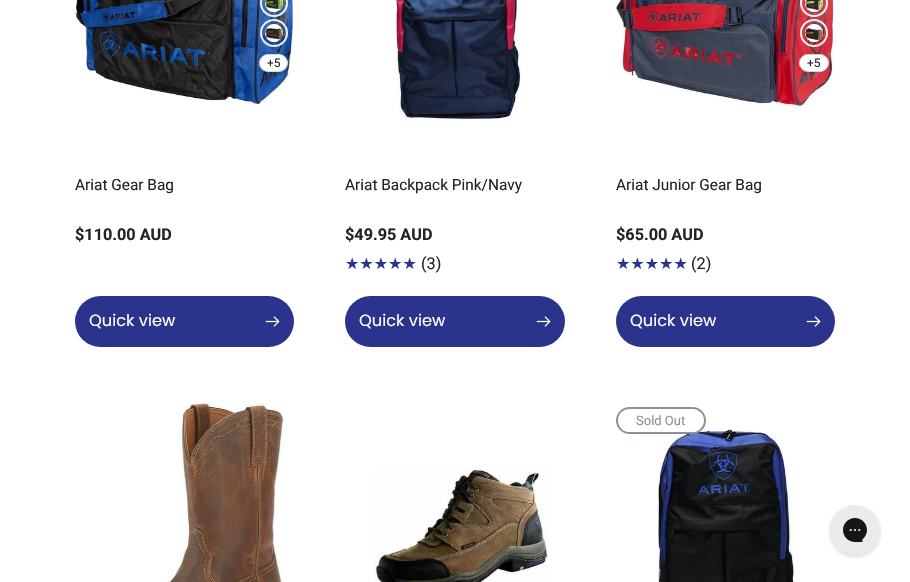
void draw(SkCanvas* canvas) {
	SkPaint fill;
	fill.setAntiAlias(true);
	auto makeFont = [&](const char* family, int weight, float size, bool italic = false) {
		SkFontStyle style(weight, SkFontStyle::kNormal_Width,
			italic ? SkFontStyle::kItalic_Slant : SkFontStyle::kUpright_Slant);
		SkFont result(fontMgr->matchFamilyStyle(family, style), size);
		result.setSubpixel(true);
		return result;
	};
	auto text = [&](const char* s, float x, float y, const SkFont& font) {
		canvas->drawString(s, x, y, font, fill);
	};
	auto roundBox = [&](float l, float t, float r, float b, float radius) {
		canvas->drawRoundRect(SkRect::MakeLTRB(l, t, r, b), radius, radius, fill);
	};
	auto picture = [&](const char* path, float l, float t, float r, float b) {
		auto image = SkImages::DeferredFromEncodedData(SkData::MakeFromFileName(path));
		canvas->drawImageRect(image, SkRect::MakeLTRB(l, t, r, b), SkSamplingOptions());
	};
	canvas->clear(0xFFFFFFFF);
	picture("image0.png", 75, 0, 294, 105);
	fill.setColor(0xFFFFFFFF);
	canvas->drawCircle(274, 3, 9, fill);
	picture("image1.png", 265, 0, 283, 12);
	fill.setStyle(SkPaint::kStroke_Style);
	fill.setStrokeWidth(2);
	fill.setColor(0xFFEEEEEE);
	canvas->drawCircle(274, 3, 13, fill);
	fill.setStyle(SkPaint::kFill_Style);
	fill.setColor(0xFFFFFFFF);
	canvas->drawCircle(274, 33, 9, fill);
	picture("image2.png", 265, 24, 283, 42);
	fill.setStyle(SkPaint::kStroke_Style);
	fill.setColor(0xFFEEEEEE);
	canvas->drawCircle(274, 33, 13, fill);
	fill.setStyle(SkPaint::kFill_Style);
	fill.setColor(0xFFFFFFFF);
	canvas->drawRoundRect(SkRect::MakeLTRB(259.5f, 54.5f, 287.5f, 71.5f), 8.5f, 8.5f, fill);
	fill.setStyle(SkPaint::kStroke_Style);
	fill.setStrokeWidth(1);
	fill.setColor(0xFFD4D6D8);
	canvas->drawRoundRect(SkRect::MakeLTRB(259.5f, 54.5f, 287.5f, 71.5f), 8.5f, 8.5f, fill);
	fill.setStyle(SkPaint::kFill_Style);
	fill.setColor(0xFF2A348C);
	roundBox(75, 296, 294, 347, 25.5f);
	picture("image3.png", 265, 316, 280, 327);
	picture("image4.png", 393, 0, 522, 120);
	roundBox(345, 296, 565, 347, 25.5f);
	picture("image3.png", 536, 316, 551, 327);
	picture("image5.png", 615, 0, 835, 108);
	fill.setColor(0xFFFFFFFF);
	canvas->drawCircle(814, 3, 9, fill);
	picture("image6.png", 805, 0, 823, 12);
	fill.setStyle(SkPaint::kStroke_Style);
	fill.setStrokeWidth(2);
	fill.setColor(0xFFEEEEEE);
	canvas->drawCircle(814, 3, 13, fill);
	fill.setStyle(SkPaint::kFill_Style);
	fill.setColor(0xFFFFFFFF);
	canvas->drawCircle(814, 33, 9, fill);
	picture("image7.png", 805, 24, 823, 42);
	fill.setStyle(SkPaint::kStroke_Style);
	fill.setColor(0xFFEEEEEE);
	canvas->drawCircle(814, 33, 13, fill);
	fill.setStyle(SkPaint::kFill_Style);
	fill.setColor(0xFFFFFFFF);
	canvas->drawRoundRect(SkRect::MakeLTRB(799.5f, 54.5f, 828.5f, 71.5f), 8.5f, 8.5f, fill);
	fill.setStyle(SkPaint::kStroke_Style);
	fill.setStrokeWidth(1);
	fill.setColor(0xFFD4D6D8);
	canvas->drawRoundRect(SkRect::MakeLTRB(799.5f, 54.5f, 828.5f, 71.5f), 8.5f, 8.5f, fill);
	fill.setStyle(SkPaint::kFill_Style);
	fill.setColor(0xFF2A348C);
	roundBox(616, 296, 835, 347, 25.5f);
	picture("image3.png", 806, 316, 821, 327);
	picture("image8.png", 167, 403, 284, 582);
	picture("image9.png", 657, 428, 795, 582);
	fill.setColor(0xFFFFFFFF);
	canvas->drawRoundRect(SkRect::MakeLTRB(617, 408, 705, 433), 12.5f, 12.5f, fill);
	fill.setStyle(SkPaint::kStroke_Style);
	fill.setStrokeWidth(2);
	fill.setColor(0xFF8A9297);
	canvas->drawRoundRect(SkRect::MakeLTRB(617, 408, 705, 433), 12.5f, 12.5f, fill);
	picture("image10.png", 374, 469, 548, 582);
	picture("image11.png", 828, 505, 882, 559);
	auto font1 = makeFont("Roboto", 400, 12);
	fill.setStyle(SkPaint::kFill_Style);
	fill.setColor(0xFF232323);
	text("+5", 267, 67, font1);
	auto font2 = makeFont("Roboto", 400, 15.4f);
	text("Ariat Gear Bag", 75, 190, font2);
	auto font3 = makeFont("Roboto", 700, 16.25f);
	text("$110.00 AUD", 75, 240, font3);
	auto font4 = makeFont("Poppins", 400, 16.25f);
	fill.setColor(0xFFFFFFFF);
	text("Quick view", 89, 326, font4);
	fill.setColor(0xFF232323);
	text("Ariat Backpack Pink/Navy", 345, 190, font2);
	text("$49.95 AUD", 345, 240, font3);
	auto font5 = makeFont("DejaVu Sans", 400, 16);
	{
		const SkColor colors[] = {0xFF2A348C, 0xFFDEDEDE};
		const float stops[] = {1, 1};
		const SkPoint ends[] = {{345, 263}, {417, 263}};
		fill.setShader(SkGradientShader::MakeLinear(ends, colors, stops, 2, SkTileMode::kClamp));
		fill.setAlpha(255);
	}
	text("★★★★★", 345, 269, font5);
	auto font6 = makeFont("Roboto", 400, 16.25f);
	fill.setShader(nullptr);
	fill.setColor(0xFF232323);
	text("(3)", 421, 269, font6);
	fill.setColor(0xFFFFFFFF);
	text("Quick view", 359, 326, font4);
	fill.setColor(0xFF232323);
	text("+5", 807, 67, font1);
	text("Ariat Junior Gear Bag", 616, 190, font2);
	text("$65.00 AUD", 616, 240, font3);
	{
		const SkColor colors[] = {0xFF2A348C, 0xFFDEDEDE};
		const float stops[] = {1, 1};
		const SkPoint ends[] = {{616, 263}, {687, 263}};
		fill.setShader(SkGradientShader::MakeLinear(ends, colors, stops, 2, SkTileMode::kClamp));
		fill.setAlpha(255);
	}
	text("★★★★★", 616, 269, font5);
	fill.setShader(nullptr);
	fill.setColor(0xFF232323);
	text("(2)", 691, 269, font6);
	fill.setColor(0xFFFFFFFF);
	text("Quick view", 630, 326, font4);
	auto font7 = makeFont("Roboto", 400, 13);
	fill.setColor(0xFF8A9297);
	text("Sold Out", 636, 425, font7);
}
